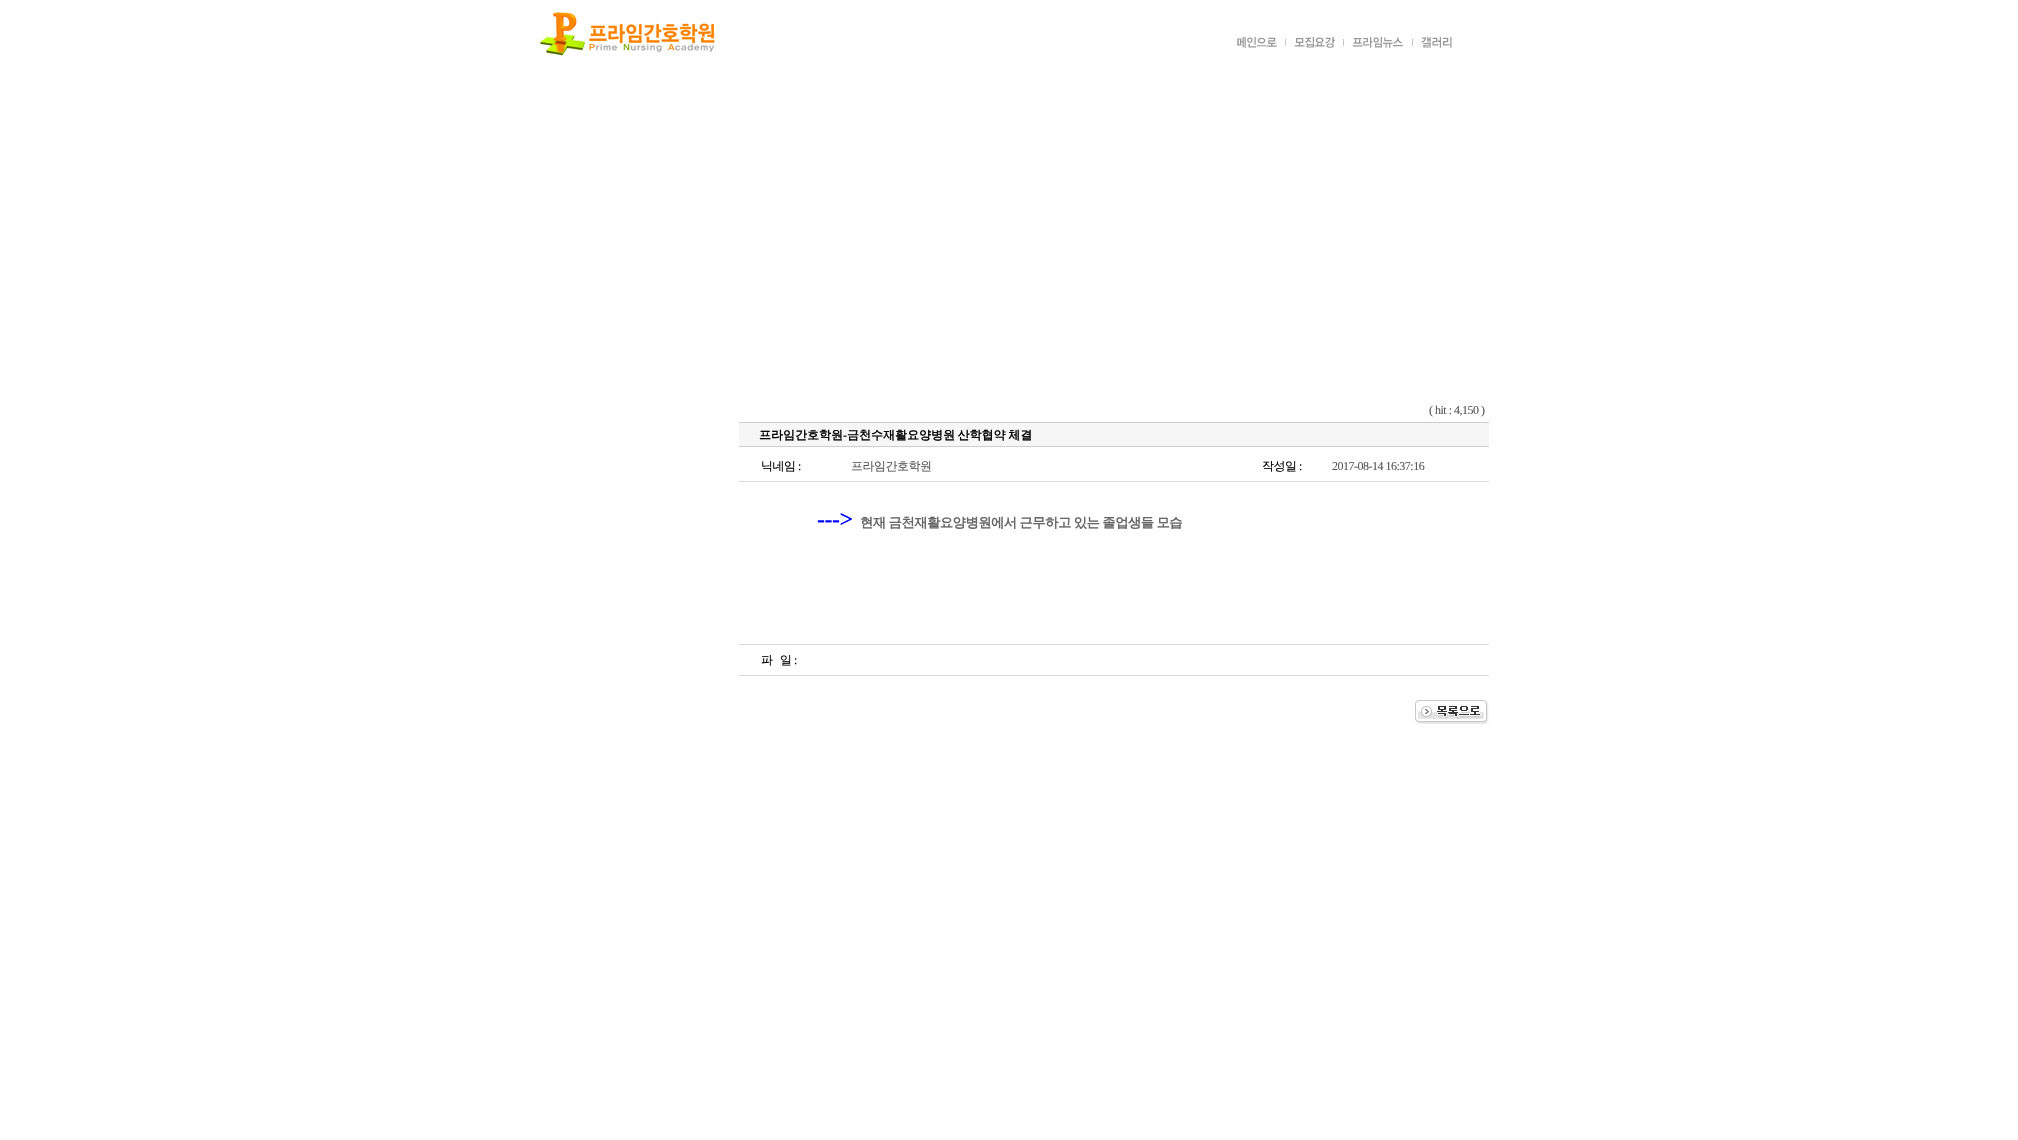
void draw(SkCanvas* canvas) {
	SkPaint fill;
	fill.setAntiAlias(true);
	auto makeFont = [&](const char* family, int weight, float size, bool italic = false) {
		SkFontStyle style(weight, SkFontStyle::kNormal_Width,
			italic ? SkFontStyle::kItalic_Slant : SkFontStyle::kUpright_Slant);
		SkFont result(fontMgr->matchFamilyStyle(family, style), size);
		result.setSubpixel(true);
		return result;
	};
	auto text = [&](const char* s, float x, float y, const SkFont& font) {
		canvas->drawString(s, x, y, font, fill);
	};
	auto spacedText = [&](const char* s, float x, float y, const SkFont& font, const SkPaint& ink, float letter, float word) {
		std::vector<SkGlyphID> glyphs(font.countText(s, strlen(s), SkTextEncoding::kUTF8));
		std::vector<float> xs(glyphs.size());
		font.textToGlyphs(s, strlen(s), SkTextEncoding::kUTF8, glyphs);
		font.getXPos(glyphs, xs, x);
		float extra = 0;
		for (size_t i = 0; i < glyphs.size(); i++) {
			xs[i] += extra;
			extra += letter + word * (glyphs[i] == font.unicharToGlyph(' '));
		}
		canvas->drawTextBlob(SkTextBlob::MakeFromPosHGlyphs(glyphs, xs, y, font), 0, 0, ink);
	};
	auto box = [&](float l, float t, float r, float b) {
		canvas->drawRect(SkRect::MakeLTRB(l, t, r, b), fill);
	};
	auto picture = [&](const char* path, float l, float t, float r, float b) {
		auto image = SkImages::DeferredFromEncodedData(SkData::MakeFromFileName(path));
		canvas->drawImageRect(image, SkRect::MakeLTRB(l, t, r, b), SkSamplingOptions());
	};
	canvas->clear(0xFFFFFFFF);
	picture("image0.png", 540, 12, 715, 56);
	picture("image1.png", 1237, 37, 1277, 48);
	picture("image2.png", 1285, 37, 1335, 48);
	picture("image3.png", 1343, 37, 1403, 48);
	picture("image4.png", 1412, 37, 1452, 48);
	fill.setColor(0xFFCDCDCD);
	box(739, 422, 1489, 423);
	fill.setColor(0xFFF6F6F6);
	box(739, 423, 1489, 446);
	fill.setColor(0xFFCDCDCD);
	box(739, 446, 1489, 447);
	fill.setColor(0xFFDBDBDB);
	box(739, 481, 1489, 482);
	box(739, 644, 1489, 645);
	box(739, 675, 1489, 676);
	picture("image5.png", 1415, 700, 1489, 724);
	auto font1 = makeFont("Liberation Serif", 400, 12);
	fill.setColor(0xFF555555);
	spacedText("( hit : 4,150 )", 1429, 414, font1, fill, -0.5f, 0);
	auto font2 = makeFont("WenQuanYi Zen Hei", 700, 12);
	fill.setColor(0xFF090909);
	text("프라임간호학원", 759, 439, font2);
	auto font3 = makeFont("Liberation Serif", 700, 12);
	text("-", 843, 439, font3);
	spacedText("금천수재활요양병원 산학협약 체결", 847, 439, font2, fill, 0, -1);
	auto font4 = makeFont("WenQuanYi Zen Hei", 500, 12);
	fill.setColor(0xFF000000);
	spacedText("닉네임", 761, 470, font4, fill, -0.5f, 0);
	spacedText(":", 798, 470, font1, fill, -0.5f, 0);
	fill.setColor(0xFF555555);
	spacedText("프라임간호학원", 851, 470, font4, fill, -0.5f, 0);
	fill.setColor(0xFF000000);
	spacedText("작성일", 1262, 470, font4, fill, -0.5f, 0);
	spacedText(":", 1299, 470, font1, fill, -0.5f, 0);
	fill.setColor(0xFF555555);
	spacedText("2017-08-14 16:37:16", 1332, 470, font1, fill, -0.5f, 0);
	auto font5 = makeFont("Liberation Serif", 700, 24);
	fill.setColor(0xFF0000FF);
	spacedText("--->", 817, 527, font5, fill, -0.5f, 0);
	auto font6 = makeFont("WenQuanYi Zen Hei", 700, 13.3f);
	fill.setColor(0xFF666666);
	spacedText("현재 금천재활요양병원에서 근무하고 있는 졸업생들 모습", 860, 527, font6, fill, -0.5f, -0.5f);
	fill.setColor(0xFF000000);
	spacedText("파", 761, 664, font4, fill, -0.5f, 0);
	spacedText("일", 780, 664, font4, fill, -0.5f, 0);
	spacedText(":", 794, 664, font1, fill, -0.5f, 0);
}
